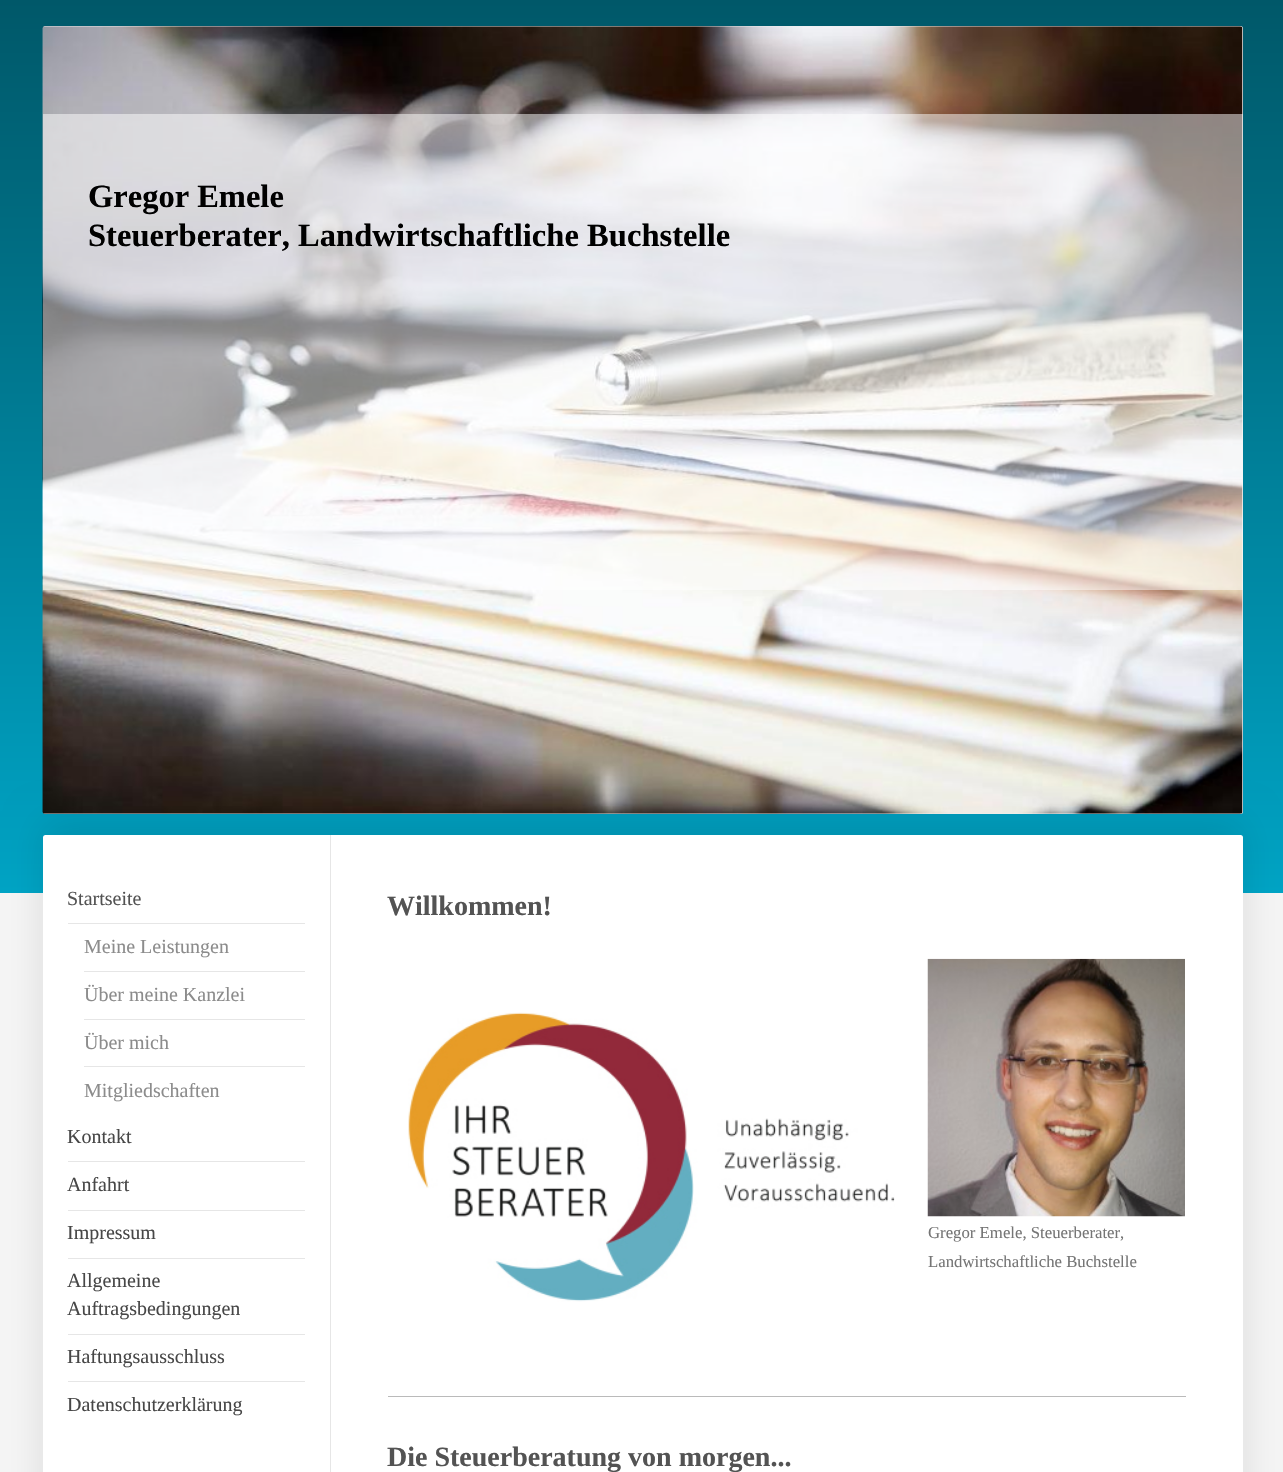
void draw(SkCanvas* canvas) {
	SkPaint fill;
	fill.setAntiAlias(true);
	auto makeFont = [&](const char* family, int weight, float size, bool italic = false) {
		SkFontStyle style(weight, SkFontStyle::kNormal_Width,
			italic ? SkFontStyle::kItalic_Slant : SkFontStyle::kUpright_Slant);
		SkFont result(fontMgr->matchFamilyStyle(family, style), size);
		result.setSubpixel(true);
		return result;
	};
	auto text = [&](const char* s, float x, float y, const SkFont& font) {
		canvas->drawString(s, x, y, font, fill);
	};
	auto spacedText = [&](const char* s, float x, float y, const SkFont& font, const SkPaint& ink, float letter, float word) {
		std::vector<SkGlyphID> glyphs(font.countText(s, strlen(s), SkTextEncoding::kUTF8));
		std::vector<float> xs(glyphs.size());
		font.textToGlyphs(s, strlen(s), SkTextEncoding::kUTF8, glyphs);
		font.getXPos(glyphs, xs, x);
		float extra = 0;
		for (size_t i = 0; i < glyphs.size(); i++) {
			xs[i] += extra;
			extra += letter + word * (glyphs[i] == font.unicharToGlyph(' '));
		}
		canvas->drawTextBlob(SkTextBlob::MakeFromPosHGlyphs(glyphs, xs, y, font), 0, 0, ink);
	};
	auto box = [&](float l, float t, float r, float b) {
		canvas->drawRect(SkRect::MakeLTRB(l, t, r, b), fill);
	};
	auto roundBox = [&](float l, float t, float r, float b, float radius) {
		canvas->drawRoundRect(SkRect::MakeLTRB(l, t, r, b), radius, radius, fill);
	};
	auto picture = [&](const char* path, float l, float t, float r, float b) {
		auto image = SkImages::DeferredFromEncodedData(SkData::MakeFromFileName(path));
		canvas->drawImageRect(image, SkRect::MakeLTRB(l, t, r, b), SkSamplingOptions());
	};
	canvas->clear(0xFFF5F5F5);
	{
		const SkColor colors[] = {0xFF00A4C5, 0xFF005869};
		const float stops[] = {0, 1};
		const SkPoint ends[] = {{0, 893}, {0, 0}};
		fill.setShader(SkGradientShader::MakeLinear(ends, colors, stops, 2, SkTileMode::kClamp));
		fill.setAlpha(255);
	}
	box(0, 0, 1283, 893);
	picture("image0.png", 42, 26, 1243, 814);
	fill.setShader(nullptr);
	fill.setColor(0x1A000000);
	fill.setMaskFilter(SkMaskFilter::MakeBlur(kNormal_SkBlurStyle, 19));
	canvas->drawRoundRect(SkRect::MakeLTRB(43, 823, 1243, 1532), 2.5f, 2.5f, fill);
	fill.setMaskFilter(nullptr);
	fill.setColor(0xFFEEEEEE);
	roundBox(43, 26, 1243, 814, 2.5f);
	picture("image1.png", 42, 26, 1243, 814);
	fill.setColor(0x80FFFFFF);
	box(43, 114, 1243, 590);
	fill.setColor(0xFFFFFFFF);
	roundBox(43, 835, 1243, 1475, 2.5f);
	fill.setColor(0xFFE6E6E6);
	box(68, 923, 305, 924);
	box(84, 971, 305, 972);
	box(84, 1019, 305, 1020);
	box(84, 1066, 305, 1067);
	box(68, 1161, 305, 1162);
	box(68, 1210, 305, 1211);
	box(68, 1258, 305, 1259);
	box(68, 1334, 305, 1335);
	box(68, 1381, 305, 1382);
	box(330, 835, 331, 1472);
	picture("image2.png", 408, 1012, 895, 1302);
	picture("image3.png", 927, 958, 1185, 1217);
	fill.setColor(0xFFBABABA);
	box(388, 1396, 1186, 1397);
	auto font1 = makeFont("Liberation Serif", 700, 32.5f);
	fill.setColor(0xFF000000);
	text("Gregor Emele", 88, 207, font1);
	spacedText("Steuerberater, Landwirtschaftliche Buchstelle", 88, 246, font1, fill, 0.05f, 0);
	auto font2 = makeFont("Liberation Serif", 400, 20);
	fill.setColor(0xFF535353);
	text("Startseite", 67, 905, font2);
	fill.setColor(0xFF8C8C8C);
	text("Meine Leistungen", 84, 953, font2);
	text("Über meine Kanzlei", 84, 1001, font2);
	text("Über mich", 84, 1049, font2);
	text("Mitgliedschaften", 84, 1097, font2);
	fill.setColor(0xFF474747);
	text("Kontakt", 67, 1143, font2);
	text("Anfahrt", 67, 1191, font2);
	text("Impressum", 67, 1239, font2);
	text("Allgemeine", 67, 1287, font2);
	text("Auftragsbedingungen", 67, 1315, font2);
	text("Haftungsausschluss", 67, 1363, font2);
	text("Datenschutzerklärung", 67, 1411, font2);
	auto font3 = makeFont("Liberation Serif", 700, 28);
	fill.setColor(0xFF535353);
	text("Willkommen!", 387, 915, font3);
	auto font4 = makeFont("Liberation Serif", 400, 16.75f);
	fill.setColor(0xFF757575);
	text("Gregor Emele, Steuerberater,", 928, 1238, font4);
	text("Landwirtschaftliche Buchstelle", 928, 1267, font4);
	fill.setColor(0xFF535353);
	text("Die Steuerberatung von morgen...", 387, 1466, font3);
}
